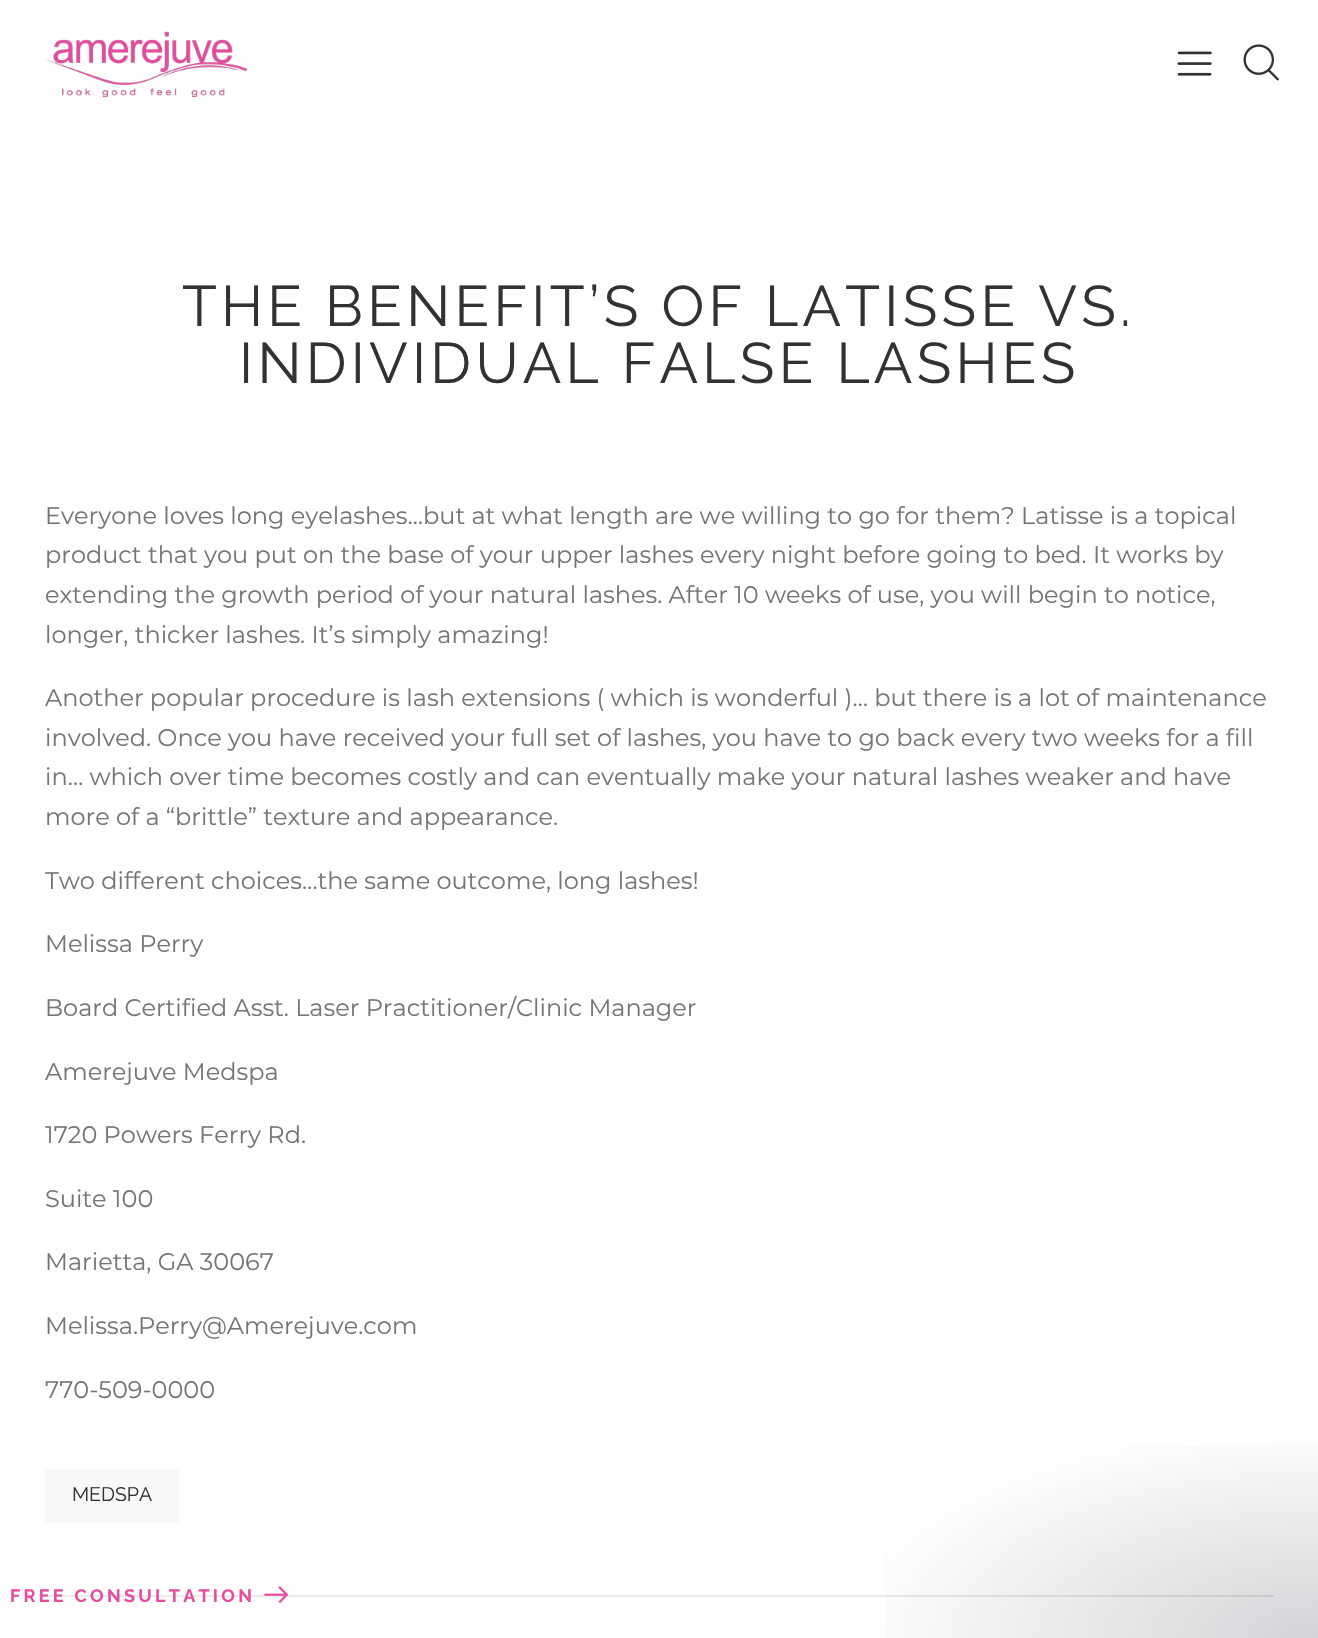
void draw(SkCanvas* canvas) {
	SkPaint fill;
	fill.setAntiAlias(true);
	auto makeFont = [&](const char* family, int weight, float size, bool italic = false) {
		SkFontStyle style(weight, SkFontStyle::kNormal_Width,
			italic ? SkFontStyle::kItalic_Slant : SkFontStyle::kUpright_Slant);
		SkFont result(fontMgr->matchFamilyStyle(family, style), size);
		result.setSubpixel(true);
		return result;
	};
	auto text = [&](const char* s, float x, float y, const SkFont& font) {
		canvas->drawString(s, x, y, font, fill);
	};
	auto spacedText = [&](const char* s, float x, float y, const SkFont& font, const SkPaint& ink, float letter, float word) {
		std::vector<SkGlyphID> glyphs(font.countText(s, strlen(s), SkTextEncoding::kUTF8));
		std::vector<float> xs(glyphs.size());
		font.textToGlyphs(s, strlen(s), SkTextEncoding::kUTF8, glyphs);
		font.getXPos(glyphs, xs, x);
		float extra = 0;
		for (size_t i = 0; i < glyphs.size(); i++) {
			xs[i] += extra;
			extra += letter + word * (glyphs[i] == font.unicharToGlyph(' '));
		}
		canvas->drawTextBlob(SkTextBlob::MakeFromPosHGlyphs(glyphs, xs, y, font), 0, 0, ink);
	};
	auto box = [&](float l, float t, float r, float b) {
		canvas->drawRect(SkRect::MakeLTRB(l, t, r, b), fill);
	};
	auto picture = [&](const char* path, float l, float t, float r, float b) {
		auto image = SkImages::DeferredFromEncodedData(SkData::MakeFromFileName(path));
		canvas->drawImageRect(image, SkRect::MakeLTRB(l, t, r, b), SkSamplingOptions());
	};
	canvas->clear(0xFFFFFFFF);
	fill.setColor(0xFFF8F8F8);
	box(45, 1469, 179, 1523);
	fill.setColor(0xFFEAEAEA);
	box(45, 1595, 1274, 1597);
	picture("image0.png", 45, 31, 248, 98);
	picture("image1.png", 1177, 51, 1212, 76);
	picture("image2.png", 1243, 44, 1279, 81);
	picture("image3.png", 264, 1586, 288, 1603);
	{
		const SkColor colors[] = {0x331D2736, 0x001D2736};
		const float stops[] = {0, 0.72f};
		SkMatrix m = SkMatrix::Translate(1319, 1638).preScale(675, 300);
		fill.setShader(SkGradientShader::MakeRadial({0, 0}, 1, colors, stops, 2, SkTileMode::kClamp, 0, &m));
		fill.setAlpha(255);
	}
	box(885, 1445, 1318, 1638);
	auto font1 = makeFont("Raleway", 400, 57);
	fill.setShader(nullptr);
	fill.setColor(0xFF323232);
	spacedText("THE BENEFIT’S OF LATISSE VS.", 182, 326, font1, fill, 4.25f, 0);
	spacedText("INDIVIDUAL FALSE LASHES", 239, 383, font1, fill, 4.25f, 0);
	auto font2 = makeFont("Montserrat", 400, 24);
	fill.setColor(0xFF757575);
	text("Everyone loves long eyelashes…but at what length are we willing to go for them? Latisse is a topical", 45, 524, font2);
	text("product that you put on the base of your upper lashes every night before going to bed. It works by", 45, 563, font2);
	text("extending the growth period of your natural lashes. After 10 weeks of use, you will begin to notice,", 45, 603, font2);
	text("longer, thicker lashes. It’s simply amazing!", 45, 643, font2);
	text("Another popular procedure is lash extensions ( which is wonderful )… but there is a lot of maintenance", 45, 706, font2);
	text("involved. Once you have received your full set of lashes, you have to go back every two weeks for a fill", 45, 746, font2);
	text("in… which over time becomes costly and can eventually make your natural lashes weaker and have", 45, 785, font2);
	text("more of a “brittle” texture and appearance.", 45, 825, font2);
	text("Two different choices…the same outcome, long lashes!", 45, 889, font2);
	text("Melissa Perry", 45, 952, font2);
	text("Board Certified Asst. Laser Practitioner/Clinic Manager", 45, 1016, font2);
	text("Amerejuve Medspa", 45, 1080, font2);
	text("1720 Powers Ferry Rd.", 45, 1143, font2);
	text("Suite 100", 45, 1207, font2);
	text("Marietta, GA 30067", 45, 1270, font2);
	text("Melissa.Perry@Amerejuve.com", 45, 1334, font2);
	text("770-509-0000", 45, 1398, font2);
	auto font3 = makeFont("Raleway", 400, 19.5f);
	fill.setColor(0xFF323232);
	text("MEDSPA", 72, 1501, font3);
	auto font4 = makeFont("Raleway", 700, 18);
	fill.setColor(0xFFE94C9F);
	spacedText("FREE CONSULTATION", 10, 1602, font4, fill, 3.25f, 0);
}
